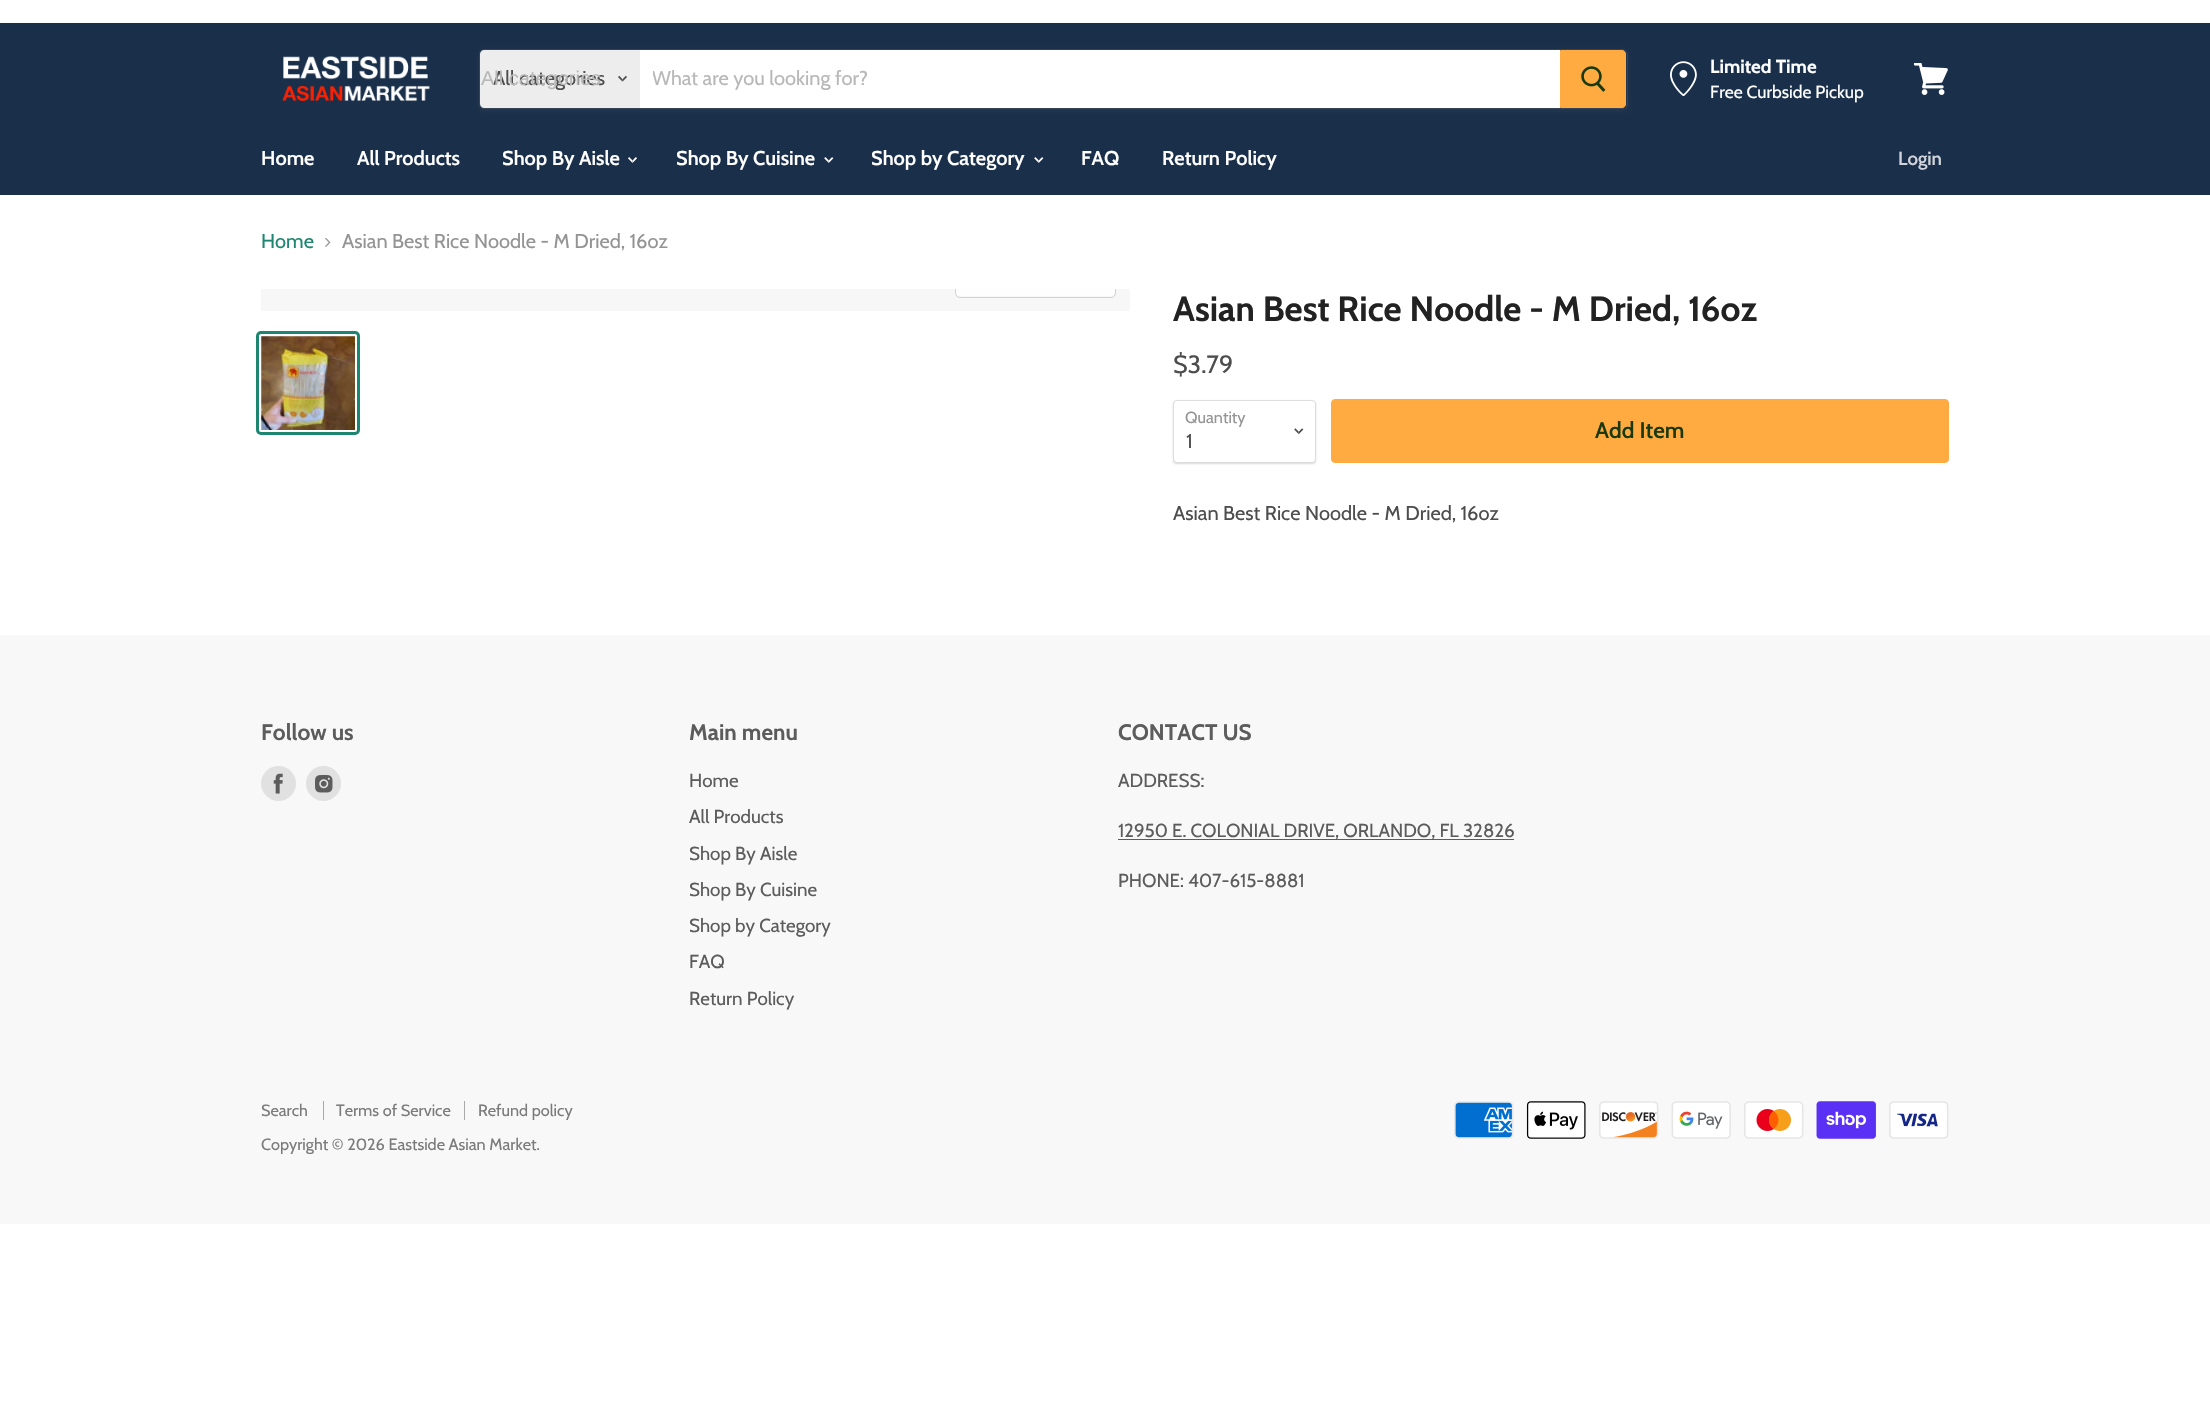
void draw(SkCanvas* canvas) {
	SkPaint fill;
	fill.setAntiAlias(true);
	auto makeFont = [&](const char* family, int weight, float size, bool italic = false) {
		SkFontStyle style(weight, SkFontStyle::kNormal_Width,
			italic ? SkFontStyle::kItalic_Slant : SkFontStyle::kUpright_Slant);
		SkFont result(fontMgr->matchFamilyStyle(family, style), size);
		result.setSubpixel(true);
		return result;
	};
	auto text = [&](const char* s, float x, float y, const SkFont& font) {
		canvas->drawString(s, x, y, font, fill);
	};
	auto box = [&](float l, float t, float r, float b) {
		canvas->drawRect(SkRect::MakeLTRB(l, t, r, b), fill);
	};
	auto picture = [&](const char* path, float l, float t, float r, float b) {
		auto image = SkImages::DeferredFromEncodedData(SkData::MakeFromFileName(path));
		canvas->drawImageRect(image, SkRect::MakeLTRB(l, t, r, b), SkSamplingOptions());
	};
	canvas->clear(0xFFFFFFFF);
	fill.setColor(0xFF1A2F4A);
	box(0, 23, 2210, 195);
	picture("image0.png", 282, 56, 430, 101);
	fill.setColor(0x1C7F7F7F);
	fill.setMaskFilter(SkMaskFilter::MakeBlur(kNormal_SkBlurStyle, 2));
	canvas->drawRoundRect(SkRect::MakeLTRB(479, 51, 1628, 111), 5, 5, fill);
	fill.setMaskFilter(nullptr);
	fill.setStyle(SkPaint::kStroke_Style);
	fill.setStrokeWidth(1);
	fill.setColor(0x337F7F7F);
	canvas->drawRoundRect(SkRect::MakeLTRB(479.5f, 49.5f, 1627.5f, 108.5f), 4.5f, 4.5f, fill);
	fill.setStyle(SkPaint::kFill_Style);
	fill.setColor(0xFFEDEDED);
	canvas->drawPath(SkPathBuilder().moveTo(484, 50).lineTo(640, 50).lineTo(640, 108).lineTo(484, 108).cubicTo(482, 108, 480, 106, 480, 104).lineTo(480, 54).cubicTo(480, 52, 482, 50, 484, 50).close().detach(), fill);
	picture("image1.png", 618, 75, 627, 82);
	fill.setColor(0xFFFFFFFF);
	box(640, 50, 1560, 108);
	fill.setColor(0xFFFFAB41);
	canvas->drawPath(SkPathBuilder().moveTo(1560.5f, 50.5f).lineTo(1622, 50.5f).cubicTo(1624, 50.5f, 1625.5f, 52, 1625.5f, 54).lineTo(1625.5f, 104).cubicTo(1625.5f, 106, 1624, 107.5f, 1622, 107.5f).lineTo(1560.5f, 107.5f).close().detach(), fill);
	fill.setStyle(SkPaint::kStroke_Style);
	canvas->drawPath(SkPathBuilder().moveTo(1560.5f, 50.5f).lineTo(1622, 50.5f).cubicTo(1624, 50.5f, 1625.5f, 52, 1625.5f, 54).lineTo(1625.5f, 104).cubicTo(1625.5f, 106, 1624, 107.5f, 1622, 107.5f).lineTo(1560.5f, 107.5f).close().detach(), fill);
	picture("image2.png", 1581, 66, 1606, 92);
	picture("image3.png", 1670, 61, 1697, 96);
	picture("image4.png", 1914, 63, 1948, 95);
	picture("image5.png", 628, 157, 637, 163);
	picture("image6.png", 824, 157, 834, 163);
	picture("image6.png", 1034, 157, 1044, 163);
	picture("image7.png", 325, 237, 331, 247);
	fill.setStyle(SkPaint::kFill_Style);
	fill.setColor(0xFFF7F7F7);
	box(261, 289, 1130, 311);
	canvas->save();
	canvas->clipRect(SkRect::MakeLTRB(261, 289, 1130, 311));
	fill.setStyle(SkPaint::kStroke_Style);
	fill.setColor(0xFFD2D2D2);
	canvas->drawRoundRect(SkRect::MakeLTRB(955.5f, 260.5f, 1115.5f, 297.5f), 4.5f, 4.5f, fill);
	canvas->restore();
	fill.setStyle(SkPaint::kFill_Style);
	fill.setColor(0xFFFEFEFE);
	canvas->drawPath(SkPathBuilder().moveTo(956, 289).lineTo(1115, 289).lineTo(1115, 292).cubicTo(1115, 294, 1113, 296, 1111, 296).lineTo(960, 296).cubicTo(958, 296, 956, 294, 956, 292).close().detach(), fill);
	fill.setStyle(SkPaint::kStroke_Style);
	fill.setStrokeWidth(3);
	fill.setColor(0xFF1E8570);
	canvas->drawRoundRect(SkRect::MakeLTRB(257.5f, 332.5f, 358.5f, 433.5f), 3.5f, 3.5f, fill);
	picture("image8.png", 261, 336, 355, 430);
	fill.setStyle(SkPaint::kFill_Style);
	fill.setColor(0x26000000);
	fill.setMaskFilter(SkMaskFilter::MakeBlur(kNormal_SkBlurStyle, 1));
	canvas->drawRoundRect(SkRect::MakeLTRB(1173, 401, 1316, 464), 4, 4, fill);
	fill.setMaskFilter(nullptr);
	fill.setColor(0xFFFFFFFF);
	canvas->drawRoundRect(SkRect::MakeLTRB(1173.5f, 400.5f, 1315.5f, 462.5f), 3.5f, 3.5f, fill);
	fill.setStyle(SkPaint::kStroke_Style);
	fill.setStrokeWidth(1);
	fill.setColor(0xFFDDDDDD);
	canvas->drawRoundRect(SkRect::MakeLTRB(1173.5f, 400.5f, 1315.5f, 462.5f), 3.5f, 3.5f, fill);
	picture("image9.png", 1294, 428, 1304, 435);
	fill.setStyle(SkPaint::kFill_Style);
	fill.setColor(0xFFFFAB41);
	canvas->drawRoundRect(SkRect::MakeLTRB(1331.5f, 399.5f, 1948.5f, 462.5f), 3.5f, 3.5f, fill);
	fill.setStyle(SkPaint::kStroke_Style);
	canvas->drawRoundRect(SkRect::MakeLTRB(1331.5f, 399.5f, 1948.5f, 462.5f), 3.5f, 3.5f, fill);
	fill.setStyle(SkPaint::kFill_Style);
	fill.setColor(0xFFF8F8F8);
	box(0, 635, 2210, 1224);
	fill.setColor(0xFFE1E1E1);
	canvas->drawCircle(278.5f, 783.5f, 17.5f, fill);
	picture("image10.png", 273, 773, 283, 794);
	canvas->drawCircle(323.5f, 783.5f, 17.5f, fill);
	picture("image11.png", 315, 775, 333, 793);
	fill.setColor(0xFF5C5C5C);
	box(1118, 839, 1514, 840);
	fill.setColor(0xFFAAAAAA);
	box(323, 1101, 324, 1120);
	box(464, 1101, 465, 1120);
	picture("image12.png", 1454, 1101, 1514, 1139);
	picture("image13.png", 1526, 1101, 1586, 1139);
	picture("image14.png", 1599, 1101, 1659, 1139);
	picture("image15.png", 1671, 1101, 1731, 1139);
	picture("image16.png", 1744, 1101, 1804, 1139);
	picture("image17.png", 1816, 1101, 1876, 1139);
	picture("image18.png", 1889, 1101, 1949, 1139);
	auto font1 = makeFont("Cabin", 400, 20);
	fill.setColor(0xFF4D4D4D);
	text("All categories", 493, 85, font1);
	auto font2 = makeFont("Liberation Sans", 400, 20);
	fill.setColor(0xFFB8B8B8);
	text("All categories", 481, 85, font2);
	canvas->save();
	canvas->clipRect(SkRect::MakeLTRB(653, 66, 1548, 90));
	text("What are you looking for?", 652, 85, font1);
	canvas->restore();
	auto font3 = makeFont("Cabin", 700, 18.75f);
	fill.setColor(0xFFFFFFFF);
	text("Limited Time", 1710, 73, font3);
	auto font4 = makeFont("Cabin", 400, 17.5f);
	text("Free Curbside Pickup", 1710, 98, font4);
	auto font5 = makeFont("Cabin", 600, 20);
	text("Home", 261, 165, font5);
	text("All Products", 357, 165, font5);
	text("Shop By Aisle", 502, 165, font5);
	text("Shop By Cuisine", 676, 165, font5);
	text("Shop by Category", 871, 165, font5);
	text("FAQ", 1081, 165, font5);
	text("Return Policy", 1162, 165, font5);
	auto font6 = makeFont("Cabin", 600, 18.75f);
	fill.setColor(0xFFD1D5DB);
	text("Login", 1898, 165, font6);
	fill.setColor(0xFF1E8570);
	text("Home", 261, 248, font1);
	fill.setColor(0xFF949494);
	text("Asian Best Rice Noodle - M Dried, 16oz", 342, 248, font1);
	auto font7 = makeFont("Cabin", 700, 35);
	fill.setColor(0xFF222222);
	text("Asian Best Rice Noodle - M Dried, 16oz", 1173, 321, font7);
	auto font8 = makeFont("Cabin", 400, 25);
	fill.setColor(0xFF4D4D4D);
	text("$3.79", 1173, 373, font8);
	auto font9 = makeFont("Cabin", 400, 16.25f);
	fill.setColor(0xFF949494);
	text("Quantity", 1185, 423, font9);
	fill.setColor(0xFF4D4D4D);
	text("1", 1186, 448, font1);
	auto font10 = makeFont("Cabin", 600, 22.5f);
	fill.setColor(0xFF1A390C);
	text("Add Item", 1595, 438, font10);
	fill.setColor(0xFF4D4D4D);
	text("Asian Best Rice Noodle - M Dried, 16oz", 1173, 520, font1);
	auto font11 = makeFont("Cabin", 700, 22.5f);
	fill.setColor(0xFF5C5C5C);
	text("Follow us", 261, 740, font11);
	text("Main menu", 689, 740, font11);
	auto font12 = makeFont("Cabin", 400, 18.75f);
	text("Home", 689, 787, font12);
	text("All Products", 689, 823, font12);
	text("Shop By Aisle", 689, 860, font12);
	text("Shop By Cuisine", 689, 896, font12);
	text("Shop by Category", 689, 932, font12);
	text("FAQ", 689, 968, font12);
	text("Return Policy", 689, 1005, font12);
	text("CONTACT US", 1118, 740, font11);
	text("ADDRESS:", 1118, 787, font12);
	text("12950 E. COLONIAL DRIVE, ORLANDO, FL 32826", 1118, 837, font12);
	text("PHONE: 407-615-8881", 1118, 887, font12);
	fill.setColor(0xFF7B7B7B);
	text("Search", 261, 1116, font9);
	text("Terms of Service", 336, 1116, font9);
	text("Refund policy", 478, 1116, font9);
	text("Copyright © 2026 Eastside Asian Market.", 261, 1150, font9);
}
